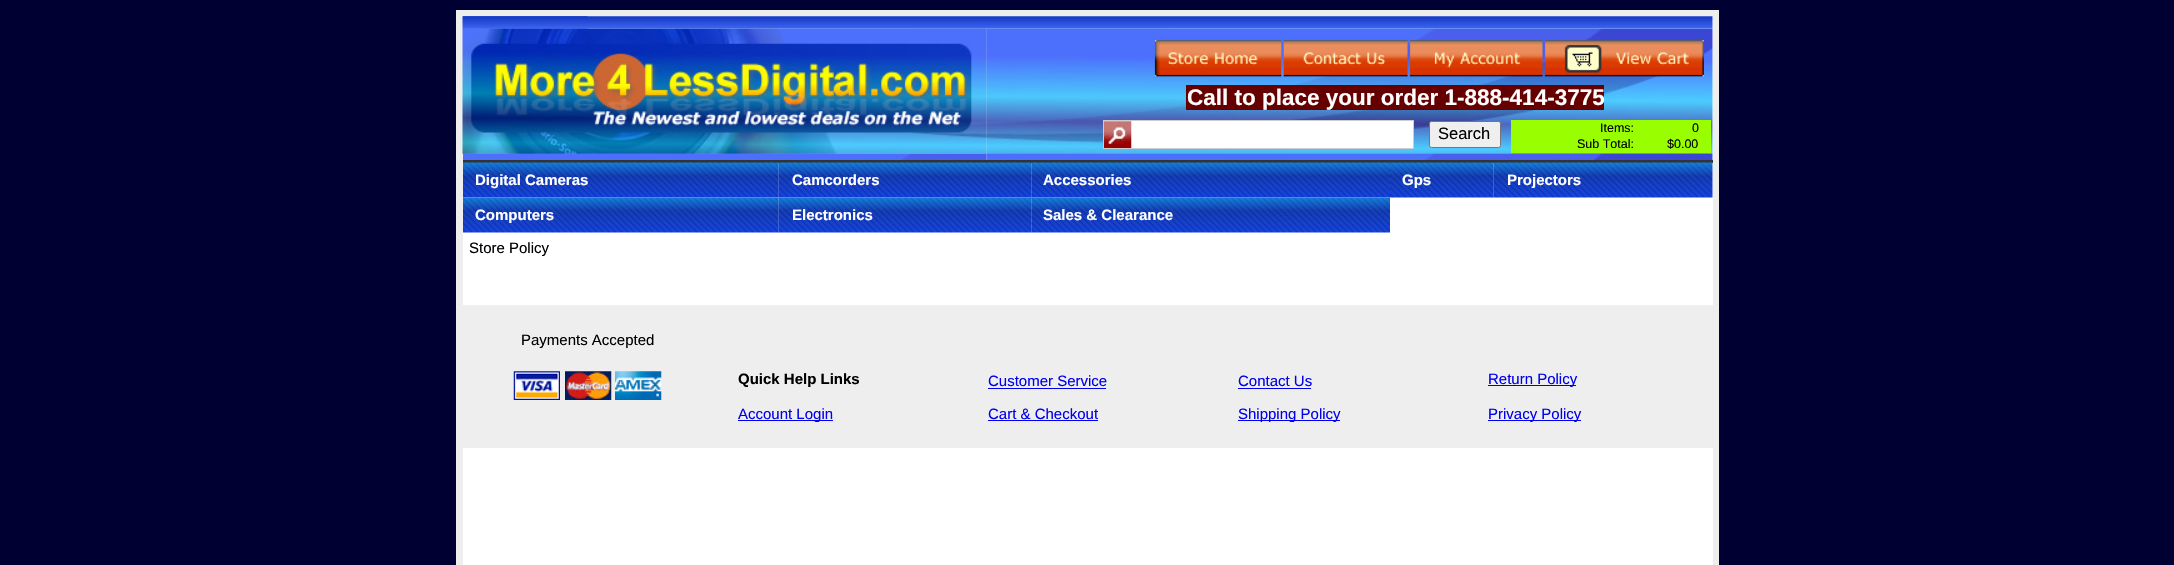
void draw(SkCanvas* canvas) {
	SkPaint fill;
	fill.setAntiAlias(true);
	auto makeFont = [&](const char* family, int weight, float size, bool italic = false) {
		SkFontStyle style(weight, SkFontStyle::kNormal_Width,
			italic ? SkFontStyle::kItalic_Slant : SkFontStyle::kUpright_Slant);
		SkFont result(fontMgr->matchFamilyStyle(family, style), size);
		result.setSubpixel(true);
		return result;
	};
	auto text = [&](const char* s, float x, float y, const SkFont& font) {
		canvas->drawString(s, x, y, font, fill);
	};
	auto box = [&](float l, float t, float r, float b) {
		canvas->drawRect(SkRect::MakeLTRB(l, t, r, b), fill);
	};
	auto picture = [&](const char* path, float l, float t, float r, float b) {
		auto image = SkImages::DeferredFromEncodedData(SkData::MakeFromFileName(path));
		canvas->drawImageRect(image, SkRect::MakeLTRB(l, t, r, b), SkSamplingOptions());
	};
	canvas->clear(0xFF000033);
	fill.setColor(0xFFFFFFFF);
	box(463, 16, 1713, 565);
	fill.setColor(0xFFEEEEEE);
	box(456, 10, 1719, 16);
	box(1713, 10, 1719, 565);
	box(456, 10, 463, 565);
	picture("image0.png", 463, 16, 1713, 29);
	picture("image2.png", 463, 28, 987, 160);
	picture("image1.png", 462, 16, 588, 29);
	picture("image4.png", 986, 28, 1713, 160);
	picture("image3.png", 462, 28, 987, 154);
	picture("image5.png", 1154, 39, 1704, 77);
	fill.setColor(0xFF660000);
	box(1186, 85, 1604, 110);
	fill.setColor(0xFFFFFFFF);
	box(1104, 121, 1413, 148);
	picture("image6.png", 1104, 121, 1132, 148);
	fill.setStyle(SkPaint::kStroke_Style);
	fill.setStrokeWidth(1);
	fill.setColor(0xFFCCCCCC);
	canvas->drawRect(SkRect::MakeLTRB(1103.5f, 120.5f, 1413.5f, 148.5f), fill);
	fill.setStyle(SkPaint::kFill_Style);
	fill.setColor(0xFFEFEFEF);
	canvas->drawRoundRect(SkRect::MakeLTRB(1429.5f, 121.5f, 1500.5f, 147.5f), 2, 2, fill);
	fill.setStyle(SkPaint::kStroke_Style);
	fill.setColor(0xFF767676);
	canvas->drawRoundRect(SkRect::MakeLTRB(1429.5f, 121.5f, 1500.5f, 147.5f), 2, 2, fill);
	fill.setStyle(SkPaint::kFill_Style);
	fill.setColor(0xFF99FF00);
	box(1511, 120, 1711, 153);
	fill.setColor(0xFF333333);
	box(463, 160, 1713, 163);
	picture("image7.png", 463, 162, 779, 198);
	picture("image8.png", 778, 162, 1032, 198);
	picture("image9.png", 1031, 162, 1390, 198);
	picture("image10.png", 1390, 162, 1494, 198);
	picture("image11.png", 1493, 162, 1713, 198);
	picture("image12.png", 463, 197, 779, 233);
	picture("image13.png", 778, 197, 1032, 233);
	picture("image14.png", 1031, 197, 1390, 233);
	fill.setColor(0xFFEEEEEE);
	box(463, 305, 1713, 448);
	picture("image15.png", 513, 371, 560, 400);
	picture("image16.png", 565, 371, 612, 400);
	picture("image17.png", 615, 371, 662, 400);
	fill.setColor(0xFF0000EE);
	box(738, 420, 833, 421);
	box(988, 388, 1106, 389);
	box(988, 420, 1098, 421);
	box(1238, 388, 1311, 389);
	box(1238, 420, 1340, 421);
	box(1488, 385, 1576, 386);
	box(1488, 420, 1581, 421);
	auto font1 = makeFont("Liberation Sans", 700, 22.5f);
	fill.setColor(0xFFFFFFFF);
	text("Call to place your order 1-888-414-3775", 1187, 105, font1);
	auto font2 = makeFont("Liberation Sans", 400, 16.5f);
	fill.setColor(0xFF000000);
	text("Search", 1438, 139, font2);
	auto font3 = makeFont("Liberation Sans", 400, 12.5f);
	text("Items:", 1600, 132, font3);
	text("0", 1692, 132, font3);
	text("Sub Total:", 1577, 148, font3);
	text("$0.00", 1667, 148, font3);
	auto font4 = makeFont("Liberation Sans", 700, 15);
	fill.setColor(0xFFFFFFFF);
	text("Digital Cameras", 475, 185, font4);
	text("Camcorders", 792, 185, font4);
	text("Accessories", 1043, 185, font4);
	text("Gps", 1402, 185, font4);
	text("Projectors", 1507, 185, font4);
	text("Computers", 475, 220, font4);
	text("Electronics", 792, 220, font4);
	text("Sales & Clearance", 1043, 220, font4);
	auto font5 = makeFont("Liberation Sans", 400, 15);
	fill.setColor(0xFF000000);
	text("Store Policy", 469, 253, font5);
	text("Payments Accepted", 521, 345, font5);
	text("Quick Help Links", 738, 384, font4);
	fill.setColor(0xFF0000EE);
	text("Account Login", 738, 419, font5);
	text("Customer Service", 988, 386, font5);
	text("Cart & Checkout", 988, 419, font5);
	text("Contact Us", 1238, 386, font5);
	text("Shipping Policy", 1238, 419, font5);
	text("Return Policy", 1488, 384, font5);
	text("Privacy Policy", 1488, 419, font5);
}
